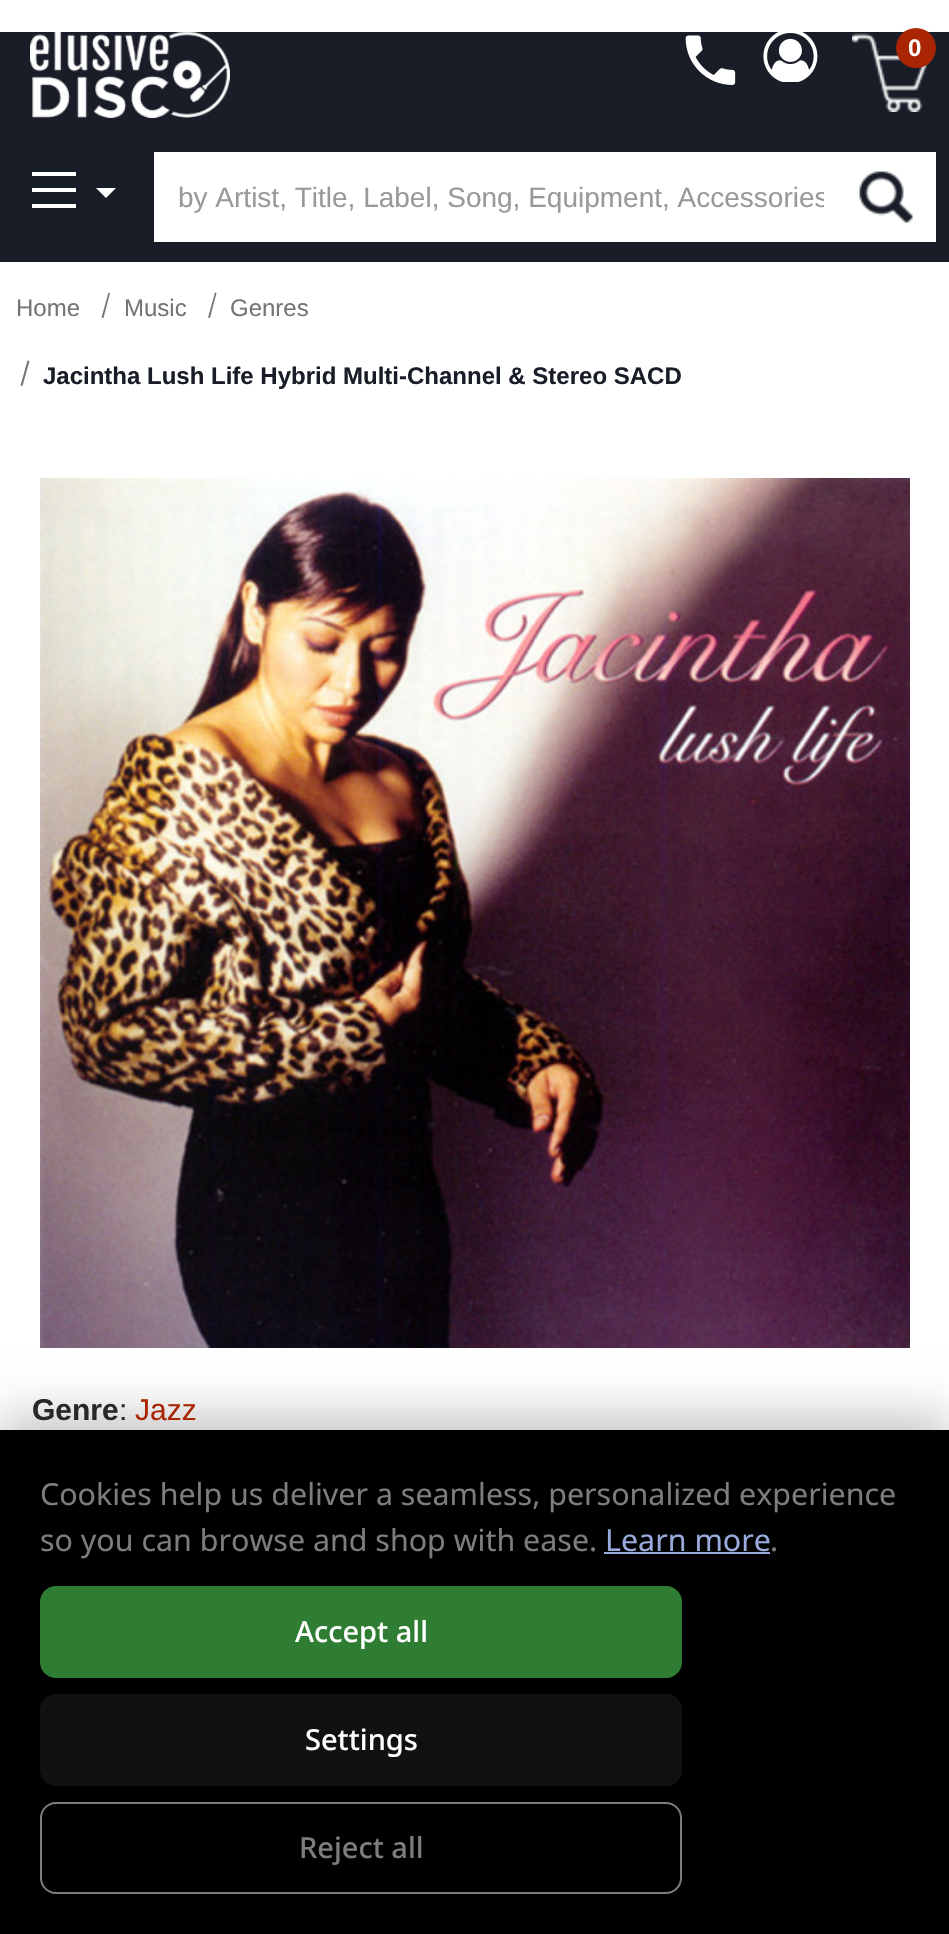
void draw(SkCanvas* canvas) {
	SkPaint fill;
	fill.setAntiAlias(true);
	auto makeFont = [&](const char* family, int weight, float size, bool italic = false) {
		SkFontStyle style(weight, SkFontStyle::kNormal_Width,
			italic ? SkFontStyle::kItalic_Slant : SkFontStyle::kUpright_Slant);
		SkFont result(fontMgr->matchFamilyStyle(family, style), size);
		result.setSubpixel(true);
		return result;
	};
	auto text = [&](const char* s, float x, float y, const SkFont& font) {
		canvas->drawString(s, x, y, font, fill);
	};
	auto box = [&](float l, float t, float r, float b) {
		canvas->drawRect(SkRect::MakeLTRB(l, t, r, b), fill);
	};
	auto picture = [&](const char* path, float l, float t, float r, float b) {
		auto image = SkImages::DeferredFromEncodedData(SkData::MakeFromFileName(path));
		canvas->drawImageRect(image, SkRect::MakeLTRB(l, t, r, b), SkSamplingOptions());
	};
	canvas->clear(0xFFFFFFFF);
	fill.setColor(0xFF191D28);
	box(0, 32, 949, 262);
	picture("image0.png", 30, 32, 230, 118);
	fill.setColor(0xFFFFFFFF);
	box(32, 188, 76, 192);
	box(32, 172, 76, 176);
	box(32, 204, 76, 208);
	canvas->drawPath(SkPathBuilder().moveTo(96, 188).lineTo(116, 188).lineTo(106, 198).close().detach(), fill);
	picture("image1.png", 685, 35, 736, 85);
	picture("image2.png", 763, 32, 818, 82);
	picture("image3.png", 852, 33, 929, 112);
	fill.setColor(0xFFA92504);
	canvas->drawCircle(916, 48, 20, fill);
	fill.setColor(0xFFFFFFFF);
	box(154, 152, 936, 242);
	picture("image4.png", 859, 171, 913, 223);
	fill.setColor(0xFF757575);
	canvas->drawPath(SkPathBuilder().moveTo(108.5f, 292.5f).lineTo(110, 293).lineTo(103.5f, 318).lineTo(101.5f, 317.5f).close().detach(), fill);
	canvas->drawPath(SkPathBuilder().moveTo(215, 292.5f).lineTo(216.5f, 293).lineTo(210, 318).lineTo(208, 317.5f).close().detach(), fill);
	canvas->drawPath(SkPathBuilder().moveTo(27.5f, 360.5f).lineTo(29.5f, 361).lineTo(22.5f, 386).lineTo(20.5f, 385.5f).close().detach(), fill);
	picture("image5.png", 40, 478, 910, 1348);
	fill.setColor(0x40000000);
	fill.setMaskFilter(SkMaskFilter::MakeBlur(kNormal_SkBlurStyle, 24));
	canvas->drawRect(SkRect::MakeLTRB(0, 1418, 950, 1922), fill);
	fill.setMaskFilter(nullptr);
	fill.setColor(0xFF000000);
	box(0, 1430, 949, 1934);
	fill.setColor(0xFF99AADD);
	box(604, 1552, 770, 1554);
	fill.setColor(0xFF2E7D32);
	canvas->drawRoundRect(SkRect::MakeLTRB(41, 1587, 681, 1677), 15, 15, fill);
	fill.setStyle(SkPaint::kStroke_Style);
	fill.setStrokeWidth(2);
	canvas->drawRoundRect(SkRect::MakeLTRB(41, 1587, 681, 1677), 15, 15, fill);
	fill.setStyle(SkPaint::kFill_Style);
	fill.setColor(0xFF111111);
	canvas->drawRoundRect(SkRect::MakeLTRB(41, 1695, 681, 1785), 15, 15, fill);
	fill.setStyle(SkPaint::kStroke_Style);
	canvas->drawRoundRect(SkRect::MakeLTRB(41, 1695, 681, 1785), 15, 15, fill);
	fill.setColor(0xFF7E7D7D);
	canvas->drawRoundRect(SkRect::MakeLTRB(41, 1803, 681, 1893), 15, 15, fill);
	auto font1 = makeFont("Liberation Sans", 700, 24);
	fill.setStyle(SkPaint::kFill_Style);
	fill.setColor(0xFFFFFFFF);
	text("0", 908, 56, font1);
	canvas->save();
	canvas->clipRect(SkRect::MakeLTRB(178, 182, 824, 214));
	auto font2 = makeFont("Liberation Sans", 400, 28);
	fill.setColor(0xFF999999);
	text("by Artist, Title, Label, Song, Equipment, Accessories", 178, 207, font2);
	canvas->restore();
	auto font3 = makeFont("Liberation Sans", 400, 24);
	fill.setColor(0xFF757575);
	text("Home", 16, 316, font3);
	text("Music", 124, 316, font3);
	text("Genres", 230, 316, font3);
	fill.setColor(0xFF191D28);
	text("Jacintha Lush Life Hybrid Multi-Channel & Stereo SACD", 43, 384, font1);
	auto font4 = makeFont("Liberation Sans", 700, 30);
	fill.setColor(0xFF282828);
	text("Genre", 32, 1420, font4);
	auto font5 = makeFont("Liberation Sans", 400, 30);
	text(":", 119, 1420, font5);
	fill.setColor(0xFFA92504);
	text("Jazz", 135, 1420, font5);
	auto font6 = makeFont("Noto Sans", 400, 30.4f);
	fill.setColor(0xFF7E7D7D);
	text("Cookies help us deliver a seamless, personalized experience", 40, 1505, font6);
	text("so you can browse and shop with ease.", 40, 1551, font6);
	fill.setColor(0xFF99AADD);
	text("Learn more", 605, 1551, font6);
	fill.setColor(0xFF7E7D7D);
	text(".", 770, 1551, font6);
	auto font7 = makeFont("Noto Sans", 500, 29);
	fill.setColor(0xFFFFFFFF);
	text("Accept all", 295, 1642, font7);
	text("Settings", 305, 1750, font7);
	fill.setColor(0xFF7E7D7D);
	text("Reject all", 299, 1858, font7);
}
